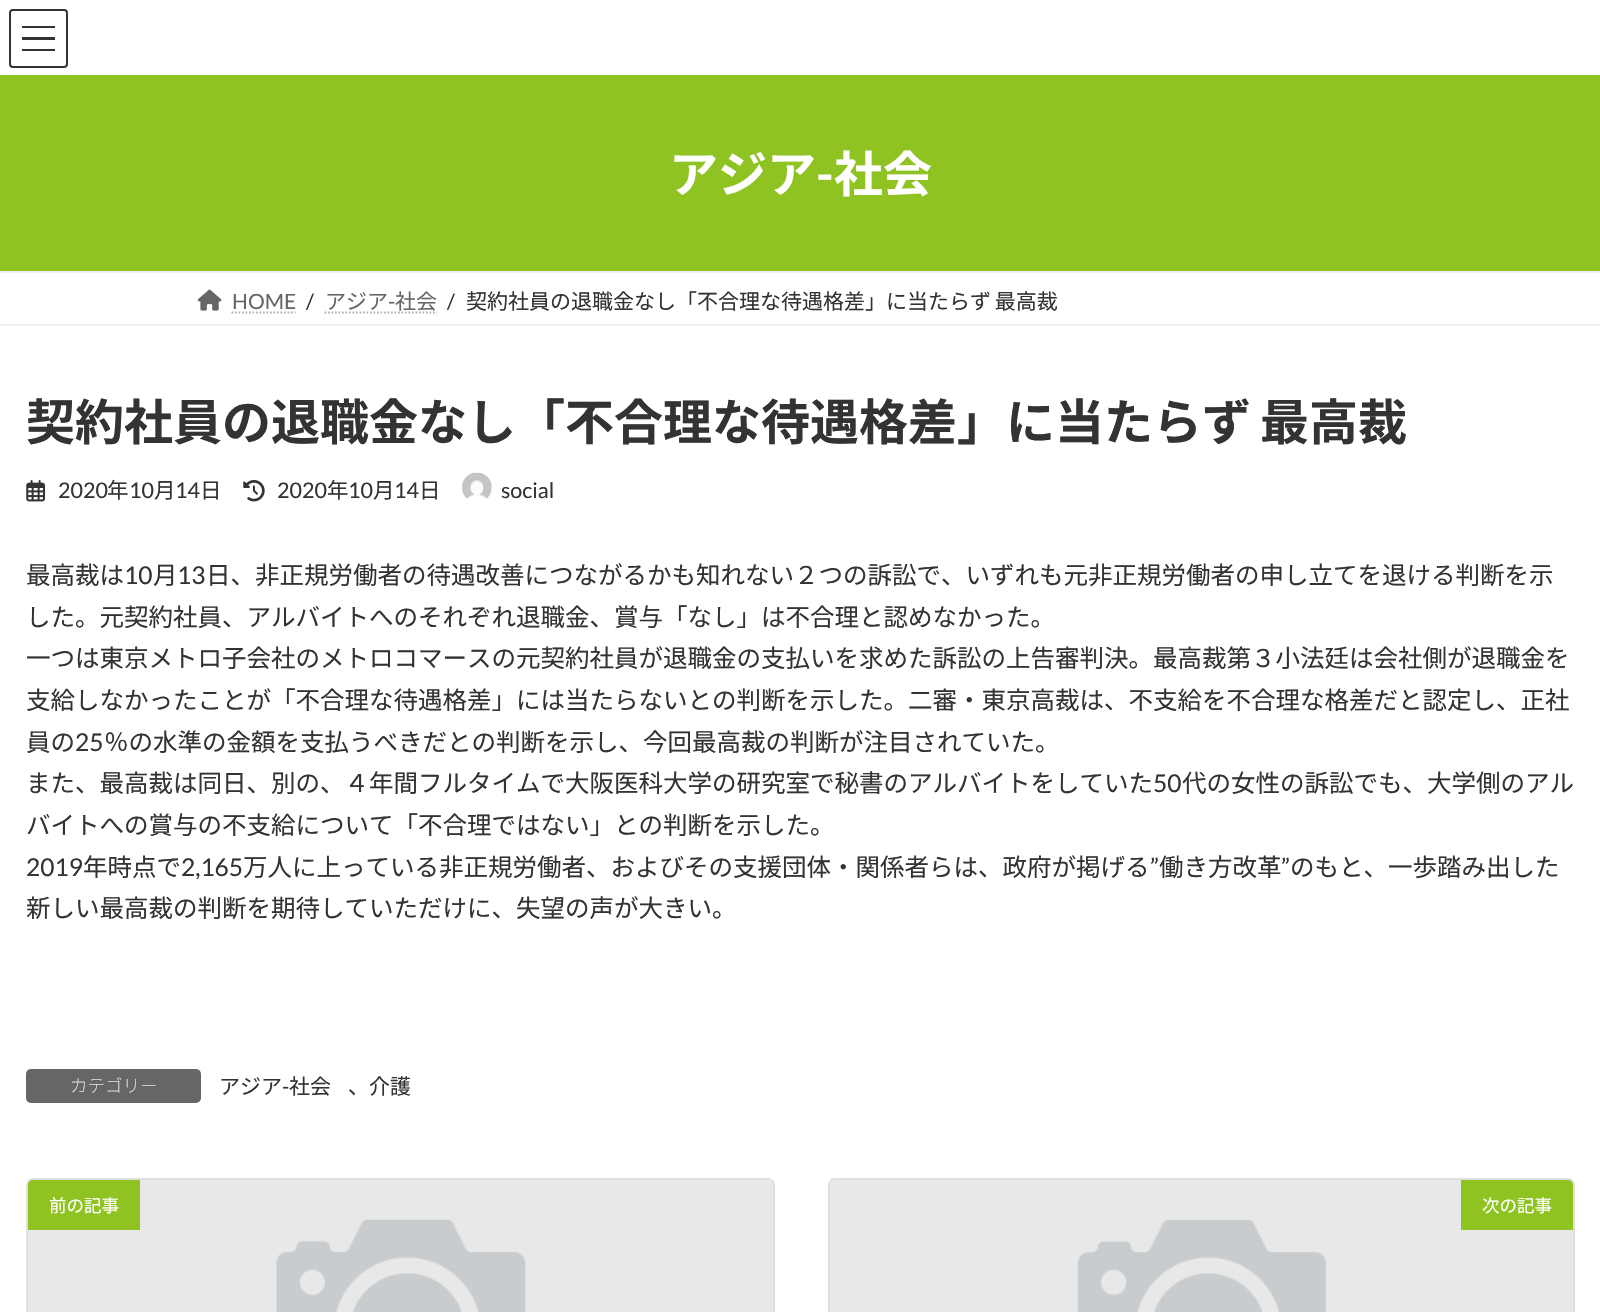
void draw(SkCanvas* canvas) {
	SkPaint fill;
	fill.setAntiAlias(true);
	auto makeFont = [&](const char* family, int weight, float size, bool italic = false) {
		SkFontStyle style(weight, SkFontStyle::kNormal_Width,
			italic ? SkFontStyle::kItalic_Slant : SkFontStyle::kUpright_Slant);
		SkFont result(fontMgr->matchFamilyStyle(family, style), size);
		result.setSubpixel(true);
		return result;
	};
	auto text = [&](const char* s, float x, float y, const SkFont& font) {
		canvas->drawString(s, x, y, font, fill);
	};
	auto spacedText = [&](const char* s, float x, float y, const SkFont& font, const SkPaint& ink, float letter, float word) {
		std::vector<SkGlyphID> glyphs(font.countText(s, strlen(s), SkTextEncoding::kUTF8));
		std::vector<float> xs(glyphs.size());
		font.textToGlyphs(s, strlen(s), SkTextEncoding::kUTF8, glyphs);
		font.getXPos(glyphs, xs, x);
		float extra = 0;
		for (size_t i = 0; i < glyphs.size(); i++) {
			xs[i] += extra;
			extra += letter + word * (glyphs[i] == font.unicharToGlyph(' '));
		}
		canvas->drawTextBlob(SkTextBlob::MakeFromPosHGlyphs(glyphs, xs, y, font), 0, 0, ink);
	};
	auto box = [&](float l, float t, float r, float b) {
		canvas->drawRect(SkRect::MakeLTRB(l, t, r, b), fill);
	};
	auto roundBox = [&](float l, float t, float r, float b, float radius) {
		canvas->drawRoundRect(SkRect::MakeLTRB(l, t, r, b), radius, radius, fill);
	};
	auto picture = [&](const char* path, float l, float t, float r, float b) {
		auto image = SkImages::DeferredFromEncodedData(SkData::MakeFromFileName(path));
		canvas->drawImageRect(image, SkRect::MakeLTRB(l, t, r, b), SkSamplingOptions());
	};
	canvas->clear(0xFFFFFFFF);
	fill.setColor(0xFF333333);
	box(22, 26, 55, 28);
	box(22, 37, 55, 40);
	box(22, 49, 55, 51);
	fill.setStyle(SkPaint::kStroke_Style);
	fill.setStrokeWidth(2);
	canvas->drawRoundRect(SkRect::MakeLTRB(10, 10, 67, 67), 3, 3, fill);
	fill.setStyle(SkPaint::kFill_Style);
	fill.setColor(0xFF8FC322);
	box(0, 75, 1600, 271);
	fill.setColor(0xFFF0F0F0);
	box(0, 271, 1600, 273);
	box(0, 324, 1600, 326);
	picture("image0.png", 197, 289, 222, 311);
	fill.setStyle(SkPaint::kStroke_Style);
	fill.setStrokeWidth(1.8f);
	fill.setColor(0xFFB3B3B3);
	fill.setPathEffect(SkDashPathEffect::Make({{1.75f, 1.75f}}, 0));
	canvas->drawPath(SkPathBuilder().moveTo(231.5f, 312.5f).lineTo(295.5f, 312.5f).detach(), fill);
	fill.setPathEffect(nullptr);
	fill.setPathEffect(SkDashPathEffect::Make({{1.75f, 1.75f}}, 0));
	canvas->drawPath(SkPathBuilder().moveTo(324.5f, 312.5f).lineTo(437, 312.5f).detach(), fill);
	fill.setPathEffect(nullptr);
	picture("image1.png", 26, 480, 45, 502);
	picture("image2.png", 243, 480, 265, 502);
	picture("image3.png", 462, 472, 492, 499);
	fill.setStyle(SkPaint::kFill_Style);
	fill.setColor(0xFF666666);
	roundBox(26, 1069, 201, 1103, 5);
	fill.setStyle(SkPaint::kStroke_Style);
	fill.setStrokeWidth(2);
	fill.setColor(0xFFDFDFDF);
	canvas->drawRoundRect(SkRect::MakeLTRB(27, 1179, 774, 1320), 6, 6, fill);
	picture("image4.png", 28, 1180, 773, 1312);
	fill.setStyle(SkPaint::kFill_Style);
	fill.setColor(0xFF8FC322);
	canvas->drawPath(SkPathBuilder().moveTo(33, 1180).lineTo(140, 1180).lineTo(140, 1230).lineTo(28, 1230).lineTo(28, 1185).cubicTo(28, 1182, 30, 1180, 33, 1180).close().detach(), fill);
	fill.setStyle(SkPaint::kStroke_Style);
	fill.setColor(0xFFDFDFDF);
	canvas->drawRoundRect(SkRect::MakeLTRB(829, 1179, 1574, 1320), 6, 6, fill);
	picture("image5.png", 830, 1180, 1573, 1312);
	fill.setStyle(SkPaint::kFill_Style);
	fill.setColor(0xFF8FC322);
	canvas->drawPath(SkPathBuilder().moveTo(1461, 1180).lineTo(1568, 1180).cubicTo(1571, 1180, 1573, 1182, 1573, 1185).lineTo(1573, 1230).lineTo(1461, 1230).close().detach(), fill);
	auto font1 = makeFont("Noto Sans JP", 700, 49);
	fill.setColor(0xFFFFFFFF);
	text("アジア", 669, 192, font1);
	auto font2 = makeFont("Lato", 700, 49);
	text("-", 816, 192, font2);
	text("社会", 834, 192, font1);
	auto font3 = makeFont("Lato", 400, 21);
	fill.setColor(0xFF666666);
	text("HOME", 232, 309, font3);
	fill.setColor(0xFF333333);
	text("/", 306, 309, font3);
	auto font4 = makeFont("Noto Sans JP", 400, 21);
	fill.setColor(0xFF666666);
	text("アジア", 325, 309, font4);
	text("-", 388, 309, font3);
	text("社会", 395, 309, font4);
	fill.setColor(0xFF333333);
	text("/", 447, 309, font3);
	spacedText("契約社員の退職金なし「不合理な待遇格差」に当たらず 最高裁", 466, 309, font4, fill, 0, -1);
	spacedText("契約社員の退職金なし「不合理な待遇格差」に当たらず 最高裁", 26, 440, font1, fill, 0, -2);
	auto font5 = makeFont("Lato", 400, 21.5f);
	text("2020", 58, 498, font5);
	auto font6 = makeFont("Noto Sans JP", 400, 21.5f);
	text("年", 107, 498, font6);
	text("10", 129, 498, font5);
	text("月", 154, 498, font6);
	text("14", 175, 498, font5);
	text("日", 200, 498, font6);
	text("2020", 277, 498, font5);
	text("年", 327, 498, font6);
	text("10", 348, 498, font5);
	text("月", 373, 498, font6);
	text("14", 394, 498, font5);
	text("日", 419, 498, font6);
	text("social", 501, 498, font5);
	auto font7 = makeFont("Noto Sans JP", 400, 24.5f);
	text("最高裁は", 26, 584, font7);
	auto font8 = makeFont("Lato", 400, 24.5f);
	text("10", 124, 584, font8);
	text("月", 153, 584, font7);
	text("13", 177, 584, font8);
	text("日、非正規労働者の待遇改善につながるかも知れない２つの訴訟で、いずれも元非正規労働者の申し立てを退ける判断を示", 206, 584, font7);
	text("した。元契約社員、アルバイトへのそれぞれ退職金、賞与「なし」は不合理と認めなかった。", 26, 626, font7);
	text("一つは東京メトロ子会社のメトロコマースの元契約社員が退職金の支払いを求めた訴訟の上告審判決。最高裁第３小法廷は会社側が退職金を", 26, 667, font7);
	text("支給しなかったことが「不合理な待遇格差」には当たらないとの判断を示した。二審・東京高裁は、不支給を不合理な格差だと認定し、正社", 26, 709, font7);
	text("員の", 26, 751, font7);
	text("25", 75, 751, font8);
	text("％の水準の金額を支払うべきだとの判断を示し、今回最高裁の判断が注目されていた。", 104, 751, font7);
	text("また、最高裁は同日、別の、４年間フルタイムで大阪医科大学の研究室で秘書のアルバイトをしていた", 26, 792, font7);
	text("50", 1153, 792, font8);
	text("代の女性の訴訟でも、大学側のアル", 1182, 792, font7);
	text("バイトへの賞与の不支給について「不合理ではない」との判断を示した。", 26, 834, font7);
	text("2019", 26, 876, font8);
	text("年時点で", 83, 876, font7);
	text("2,165", 181, 876, font8);
	text("万人に上っている非正規労働者、およびその支援団体・関係者らは、政府が掲げる", 243, 876, font7);
	text("”", 1150, 876, font8);
	text("働き方改革", 1159, 876, font7);
	text("”", 1281, 876, font8);
	text("のもと、一歩踏み出した", 1290, 876, font7);
	text("新しい最高裁の判断を期待していただけに、失望の声が大きい。", 26, 917, font7);
	auto font9 = makeFont("Noto Sans JP", 100, 17.5f);
	fill.setColor(0xFFFFFFFF);
	text("カテゴリー", 70, 1092, font9);
	fill.setColor(0xFF333333);
	text("アジア", 219, 1094, font4);
	text("-", 282, 1094, font3);
	text("社会", 289, 1094, font4);
	text("、介護", 348, 1094, font4);
	auto font10 = makeFont("Noto Sans JP", 400, 17.5f);
	fill.setColor(0xFFFFFFFF);
	text("前の記事", 49, 1212, font10);
	text("次の記事", 1482, 1212, font10);
}
